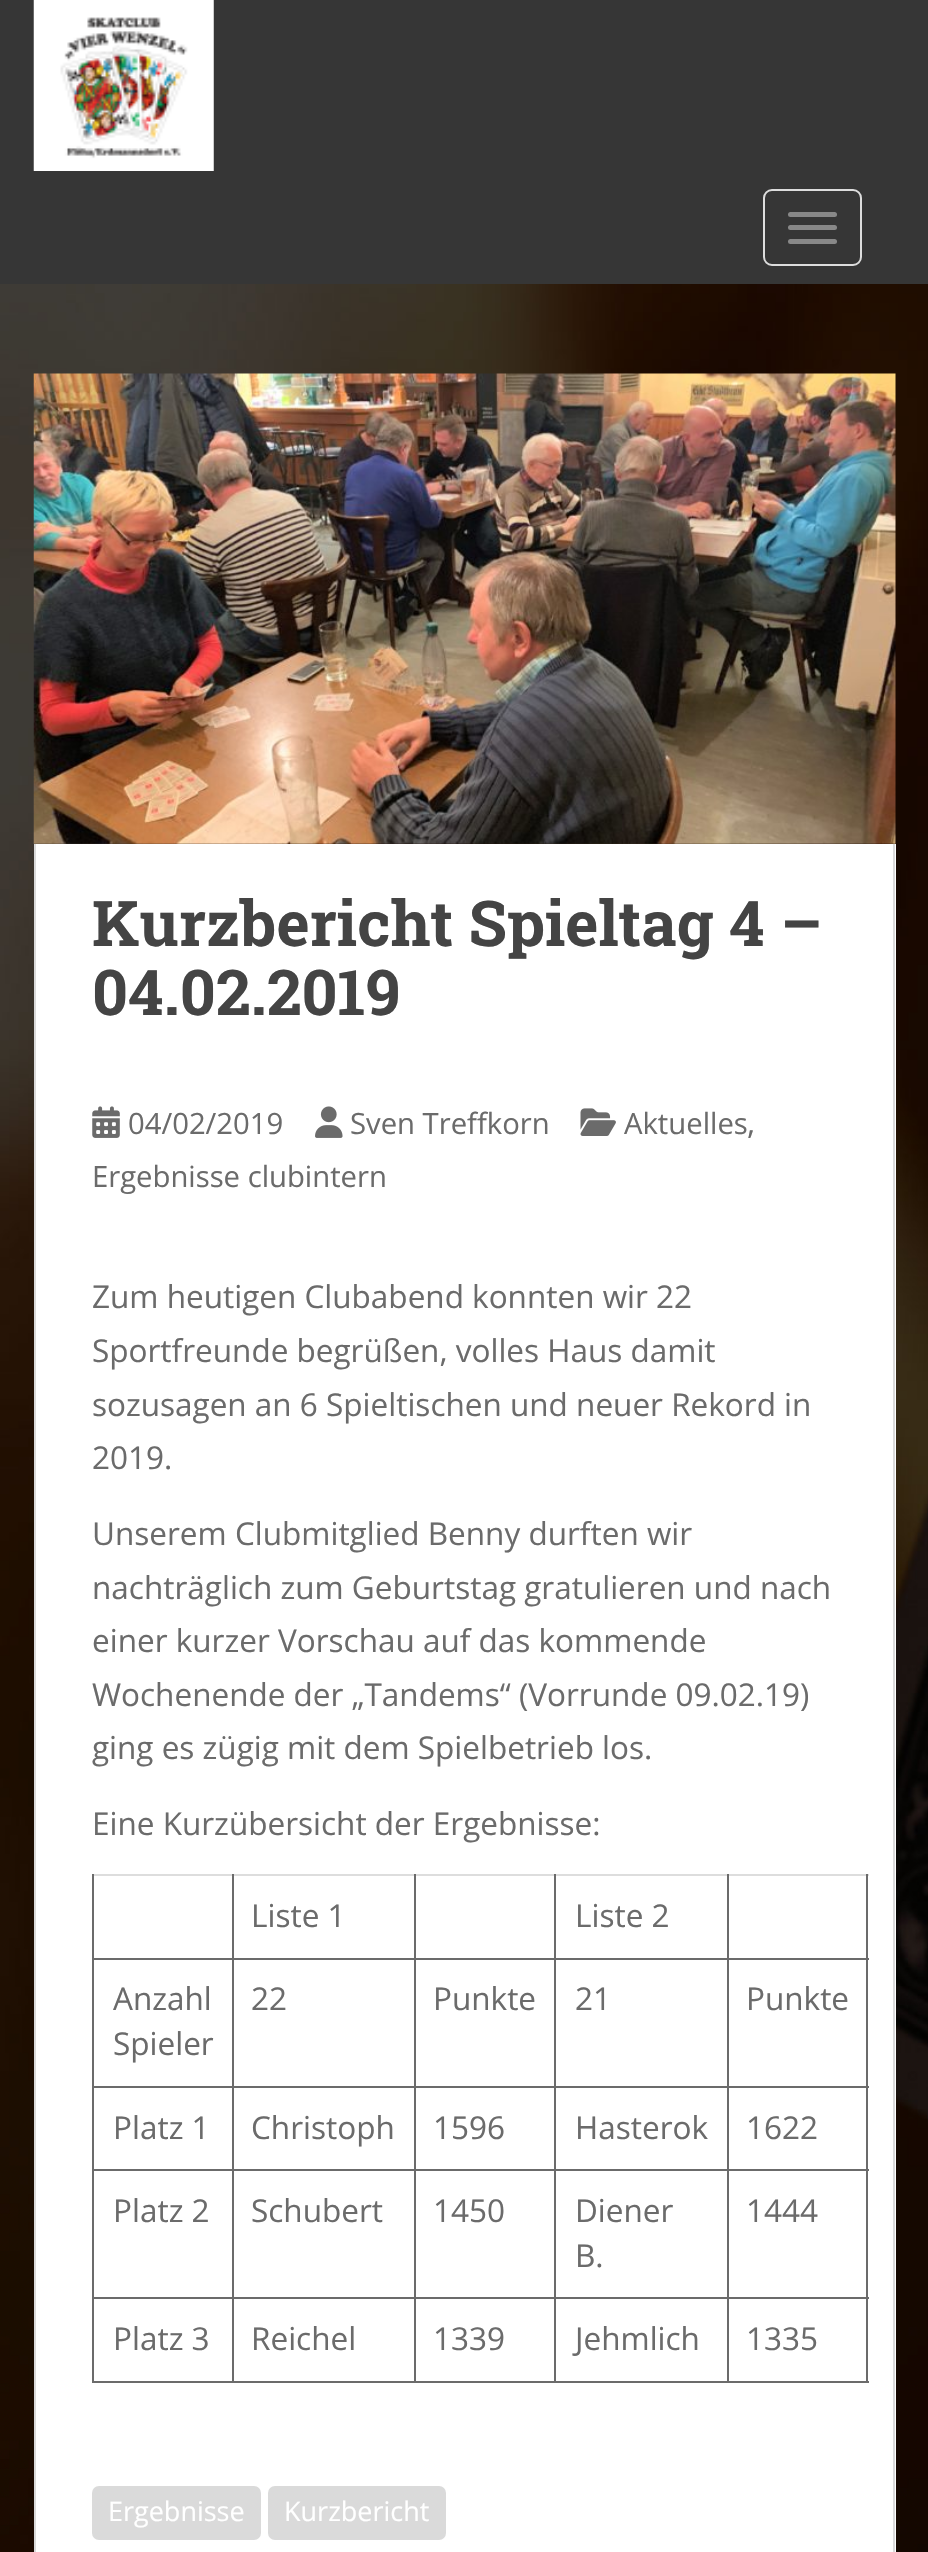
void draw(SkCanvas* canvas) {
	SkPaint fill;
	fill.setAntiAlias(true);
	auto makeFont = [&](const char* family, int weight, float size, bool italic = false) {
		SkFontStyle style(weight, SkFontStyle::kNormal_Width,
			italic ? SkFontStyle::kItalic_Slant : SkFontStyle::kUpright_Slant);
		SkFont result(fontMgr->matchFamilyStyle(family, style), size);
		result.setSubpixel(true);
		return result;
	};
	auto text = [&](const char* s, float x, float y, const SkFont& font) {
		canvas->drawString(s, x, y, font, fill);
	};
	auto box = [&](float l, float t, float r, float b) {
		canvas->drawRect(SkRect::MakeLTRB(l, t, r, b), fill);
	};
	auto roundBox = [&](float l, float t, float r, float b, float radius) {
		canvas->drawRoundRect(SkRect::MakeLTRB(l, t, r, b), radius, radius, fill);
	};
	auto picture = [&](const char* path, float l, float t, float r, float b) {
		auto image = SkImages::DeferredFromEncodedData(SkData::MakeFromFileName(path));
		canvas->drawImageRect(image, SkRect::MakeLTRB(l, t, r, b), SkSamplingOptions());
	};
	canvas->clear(0xFFFFFFFF);
	picture("image0.png", 0, 284, 928, 2552);
	fill.setColor(0xFF363636);
	box(0, 0, 928, 284);
	picture("image1.png", 33, 0, 214, 171);
	fill.setStyle(SkPaint::kStroke_Style);
	fill.setStrokeWidth(2);
	fill.setColor(0xFFDDDDDD);
	canvas->drawRoundRect(SkRect::MakeLTRB(764, 190, 861, 265), 8, 8, fill);
	fill.setStyle(SkPaint::kFill_Style);
	fill.setColor(0xFF888888);
	roundBox(788, 212, 837, 217, 2.5f);
	roundBox(788, 225, 837, 230, 2.5f);
	roundBox(788, 239, 837, 244, 2.5f);
	picture("image2.png", 33, 373, 896, 844);
	fill.setColor(0xFFFFFFFF);
	box(36, 844, 896, 2552);
	fill.setColor(0xFFDADADA);
	box(893, 844, 895, 2552);
	box(34, 844, 36, 2552);
	picture("image3.png", 580, 1108, 616, 1136);
	picture("image4.png", 92, 1106, 120, 1138);
	picture("image5.png", 315, 1106, 343, 1138);
	fill.setColor(0xFFDDDDDD);
	box(92, 1874, 869, 1876);
	fill.setColor(0xFF6B6B6B);
	box(866, 1958, 868, 2383);
	box(866, 1874, 868, 1960);
	box(727, 2381, 869, 2383);
	box(727, 2297, 729, 2383);
	box(727, 2297, 869, 2299);
	box(727, 2169, 729, 2300);
	box(727, 2169, 869, 2171);
	box(727, 2086, 729, 2171);
	box(727, 2086, 869, 2088);
	box(727, 1958, 729, 2088);
	box(727, 1958, 869, 1960);
	box(727, 1874, 729, 1960);
	box(554, 2381, 729, 2383);
	box(554, 2297, 556, 2383);
	box(554, 2297, 729, 2299);
	box(554, 2169, 556, 2300);
	box(554, 2169, 729, 2171);
	box(554, 2086, 556, 2171);
	box(554, 2086, 729, 2088);
	box(554, 1958, 556, 2088);
	box(554, 1958, 729, 1960);
	box(554, 1874, 556, 1960);
	box(414, 2381, 556, 2383);
	box(414, 2297, 416, 2383);
	box(414, 2297, 556, 2299);
	box(414, 2169, 416, 2300);
	box(414, 2169, 556, 2171);
	box(414, 2086, 416, 2171);
	box(414, 2086, 556, 2088);
	box(414, 1958, 416, 2088);
	box(414, 1958, 556, 1960);
	box(414, 1874, 416, 1960);
	box(232, 2381, 416, 2383);
	box(232, 2297, 234, 2383);
	box(232, 2297, 416, 2299);
	box(232, 2169, 234, 2300);
	box(232, 2169, 416, 2171);
	box(232, 2086, 234, 2171);
	box(232, 2086, 416, 2088);
	box(232, 1958, 234, 2088);
	box(232, 1958, 416, 1960);
	box(232, 1874, 234, 1960);
	box(92, 2381, 234, 2383);
	box(92, 2297, 94, 2383);
	box(92, 2297, 234, 2299);
	box(92, 2169, 94, 2300);
	box(92, 2169, 234, 2171);
	box(92, 2086, 94, 2171);
	box(92, 2086, 234, 2088);
	box(92, 1958, 94, 2088);
	box(92, 1958, 234, 1960);
	box(92, 1874, 94, 1960);
	fill.setColor(0xFFDADADA);
	roundBox(92, 2486, 261, 2540, 7);
	roundBox(268, 2486, 446, 2540, 7);
	auto font1 = makeFont("Roboto Slab", 700, 63);
	fill.setColor(0xFF444444);
	text("Kurzbericht Spieltag 4 –", 92, 946, font1);
	text("04.02.2019", 92, 1015, font1);
	auto font2 = makeFont("Open Sans", 400, 29.25f);
	fill.setColor(0xFF6B6B6B);
	text("Aktuelles", 624, 1134, font2);
	auto font3 = makeFont("Open Sans", 400, 31.5f);
	text(",", 747, 1134, font3);
	text("Ergebnisse clubintern", 92, 1187, font2);
	text("04/02/2019", 128, 1134, font2);
	text("Sven Treffkorn", 350, 1134, font2);
	text("Zum heutigen Clubabend konnten wir 22", 92, 1308, font3);
	text("Sportfreunde begrüßen, volles Haus damit", 92, 1362, font3);
	text("sozusagen an 6 Spieltischen und neuer Rekord in", 92, 1416, font3);
	text("2019.", 92, 1469, font3);
	text("Unserem Clubmitglied Benny durften wir", 92, 1545, font3);
	text("nachträglich zum Geburtstag gratulieren und nach", 92, 1599, font3);
	text("einer kurzer Vorschau auf das kommende", 92, 1652, font3);
	text("Wochenende der „Tandems“ (Vorrunde 09.02.19)", 92, 1706, font3);
	text("ging es zügig mit dem Spielbetrieb los.", 92, 1759, font3);
	text("Eine Kurzübersicht der Ergebnisse:", 92, 1835, font3);
	text("Liste 1", 251, 1927, font3);
	text("Liste 2", 575, 1927, font3);
	text("Anzahl", 113, 2010, font3);
	text("Spieler", 113, 2055, font3);
	text("22", 251, 2010, font3);
	text("Punkte", 433, 2010, font3);
	text("21", 575, 2010, font3);
	text("Punkte", 746, 2010, font3);
	text("Platz 1", 113, 2139, font3);
	text("Christoph", 251, 2139, font3);
	text("1596", 433, 2139, font3);
	text("Hasterok", 575, 2139, font3);
	text("1622", 746, 2139, font3);
	text("Platz 2", 113, 2222, font3);
	text("Schubert", 251, 2222, font3);
	text("1450", 433, 2222, font3);
	text("Diener", 575, 2222, font3);
	text("B.", 575, 2267, font3);
	text("1444", 746, 2222, font3);
	text("Platz 3", 113, 2350, font3);
	text("Reichel", 251, 2350, font3);
	text("1339", 433, 2350, font3);
	text("Jehmlich", 575, 2350, font3);
	text("1335", 746, 2350, font3);
	auto font4 = makeFont("Open Sans", 400, 27);
	fill.setColor(0xFFFFFFFF);
	text("Ergebnisse", 108, 2521, font4);
	text("Kurzbericht", 284, 2521, font4);
}
